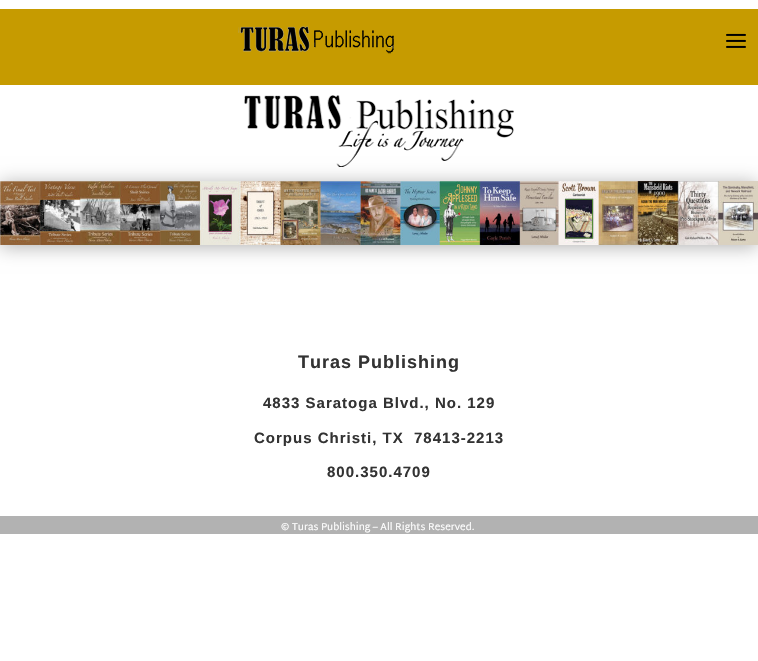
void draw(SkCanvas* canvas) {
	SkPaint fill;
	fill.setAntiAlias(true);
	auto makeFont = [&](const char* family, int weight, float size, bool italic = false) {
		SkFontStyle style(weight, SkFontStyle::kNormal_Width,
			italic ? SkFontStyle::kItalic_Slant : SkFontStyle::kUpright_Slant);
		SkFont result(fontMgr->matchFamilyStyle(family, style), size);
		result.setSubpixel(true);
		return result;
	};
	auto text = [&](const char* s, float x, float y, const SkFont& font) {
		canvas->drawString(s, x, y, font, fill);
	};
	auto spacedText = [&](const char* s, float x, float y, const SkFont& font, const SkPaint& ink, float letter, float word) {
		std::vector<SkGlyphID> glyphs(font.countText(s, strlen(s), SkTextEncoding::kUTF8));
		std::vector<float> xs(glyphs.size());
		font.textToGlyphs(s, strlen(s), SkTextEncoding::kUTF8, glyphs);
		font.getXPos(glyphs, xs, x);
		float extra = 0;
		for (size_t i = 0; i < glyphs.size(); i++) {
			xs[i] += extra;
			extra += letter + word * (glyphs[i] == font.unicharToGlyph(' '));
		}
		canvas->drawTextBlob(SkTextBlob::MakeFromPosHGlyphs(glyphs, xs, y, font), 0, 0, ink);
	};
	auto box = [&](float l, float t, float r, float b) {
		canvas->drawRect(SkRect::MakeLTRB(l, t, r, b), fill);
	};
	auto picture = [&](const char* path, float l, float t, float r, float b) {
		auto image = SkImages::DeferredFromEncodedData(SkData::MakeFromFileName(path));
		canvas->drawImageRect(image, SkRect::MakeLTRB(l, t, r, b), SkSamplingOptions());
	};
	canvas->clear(0xFFFFFFFF);
	fill.setColor(0xFFC69B00);
	box(0, 9, 758, 85);
	picture("image0.png", 238, 25, 394, 54);
	picture("image1.png", 726, 33, 746, 48);
	picture("image2.png", 244, 95, 514, 167);
	fill.setColor(0x4D000000);
	fill.setMaskFilter(SkMaskFilter::MakeBlur(kNormal_SkBlurStyle, 9));
	canvas->drawRect(SkRect::MakeLTRB(0, 183, 758, 247), fill);
	fill.setMaskFilter(nullptr);
	picture("image3.png", 0, 181, 758, 245);
	fill.setColor(0xFFB2B2B2);
	box(0, 516, 758, 534);
	auto font1 = makeFont("Liberation Sans", 700, 18);
	fill.setColor(0xFF333333);
	spacedText("Turas Publishing", 298, 368, font1, fill, 1, 0);
	auto font2 = makeFont("Liberation Sans", 700, 15);
	spacedText("4833 Saratoga Blvd., No. 129", 263, 408, font2, fill, 1, 0);
	spacedText("Corpus Christi, TX  78413-2213", 254, 443, font2, fill, 1, 0);
	spacedText("800.350.4709", 327, 477, font2, fill, 1, 0);
	auto font3 = makeFont("Martel Sans", 400, 10);
	fill.setColor(0xFFFFFFFF);
	text("© Turas Publishing – All Rights Reserved.", 281, 530, font3);
}
